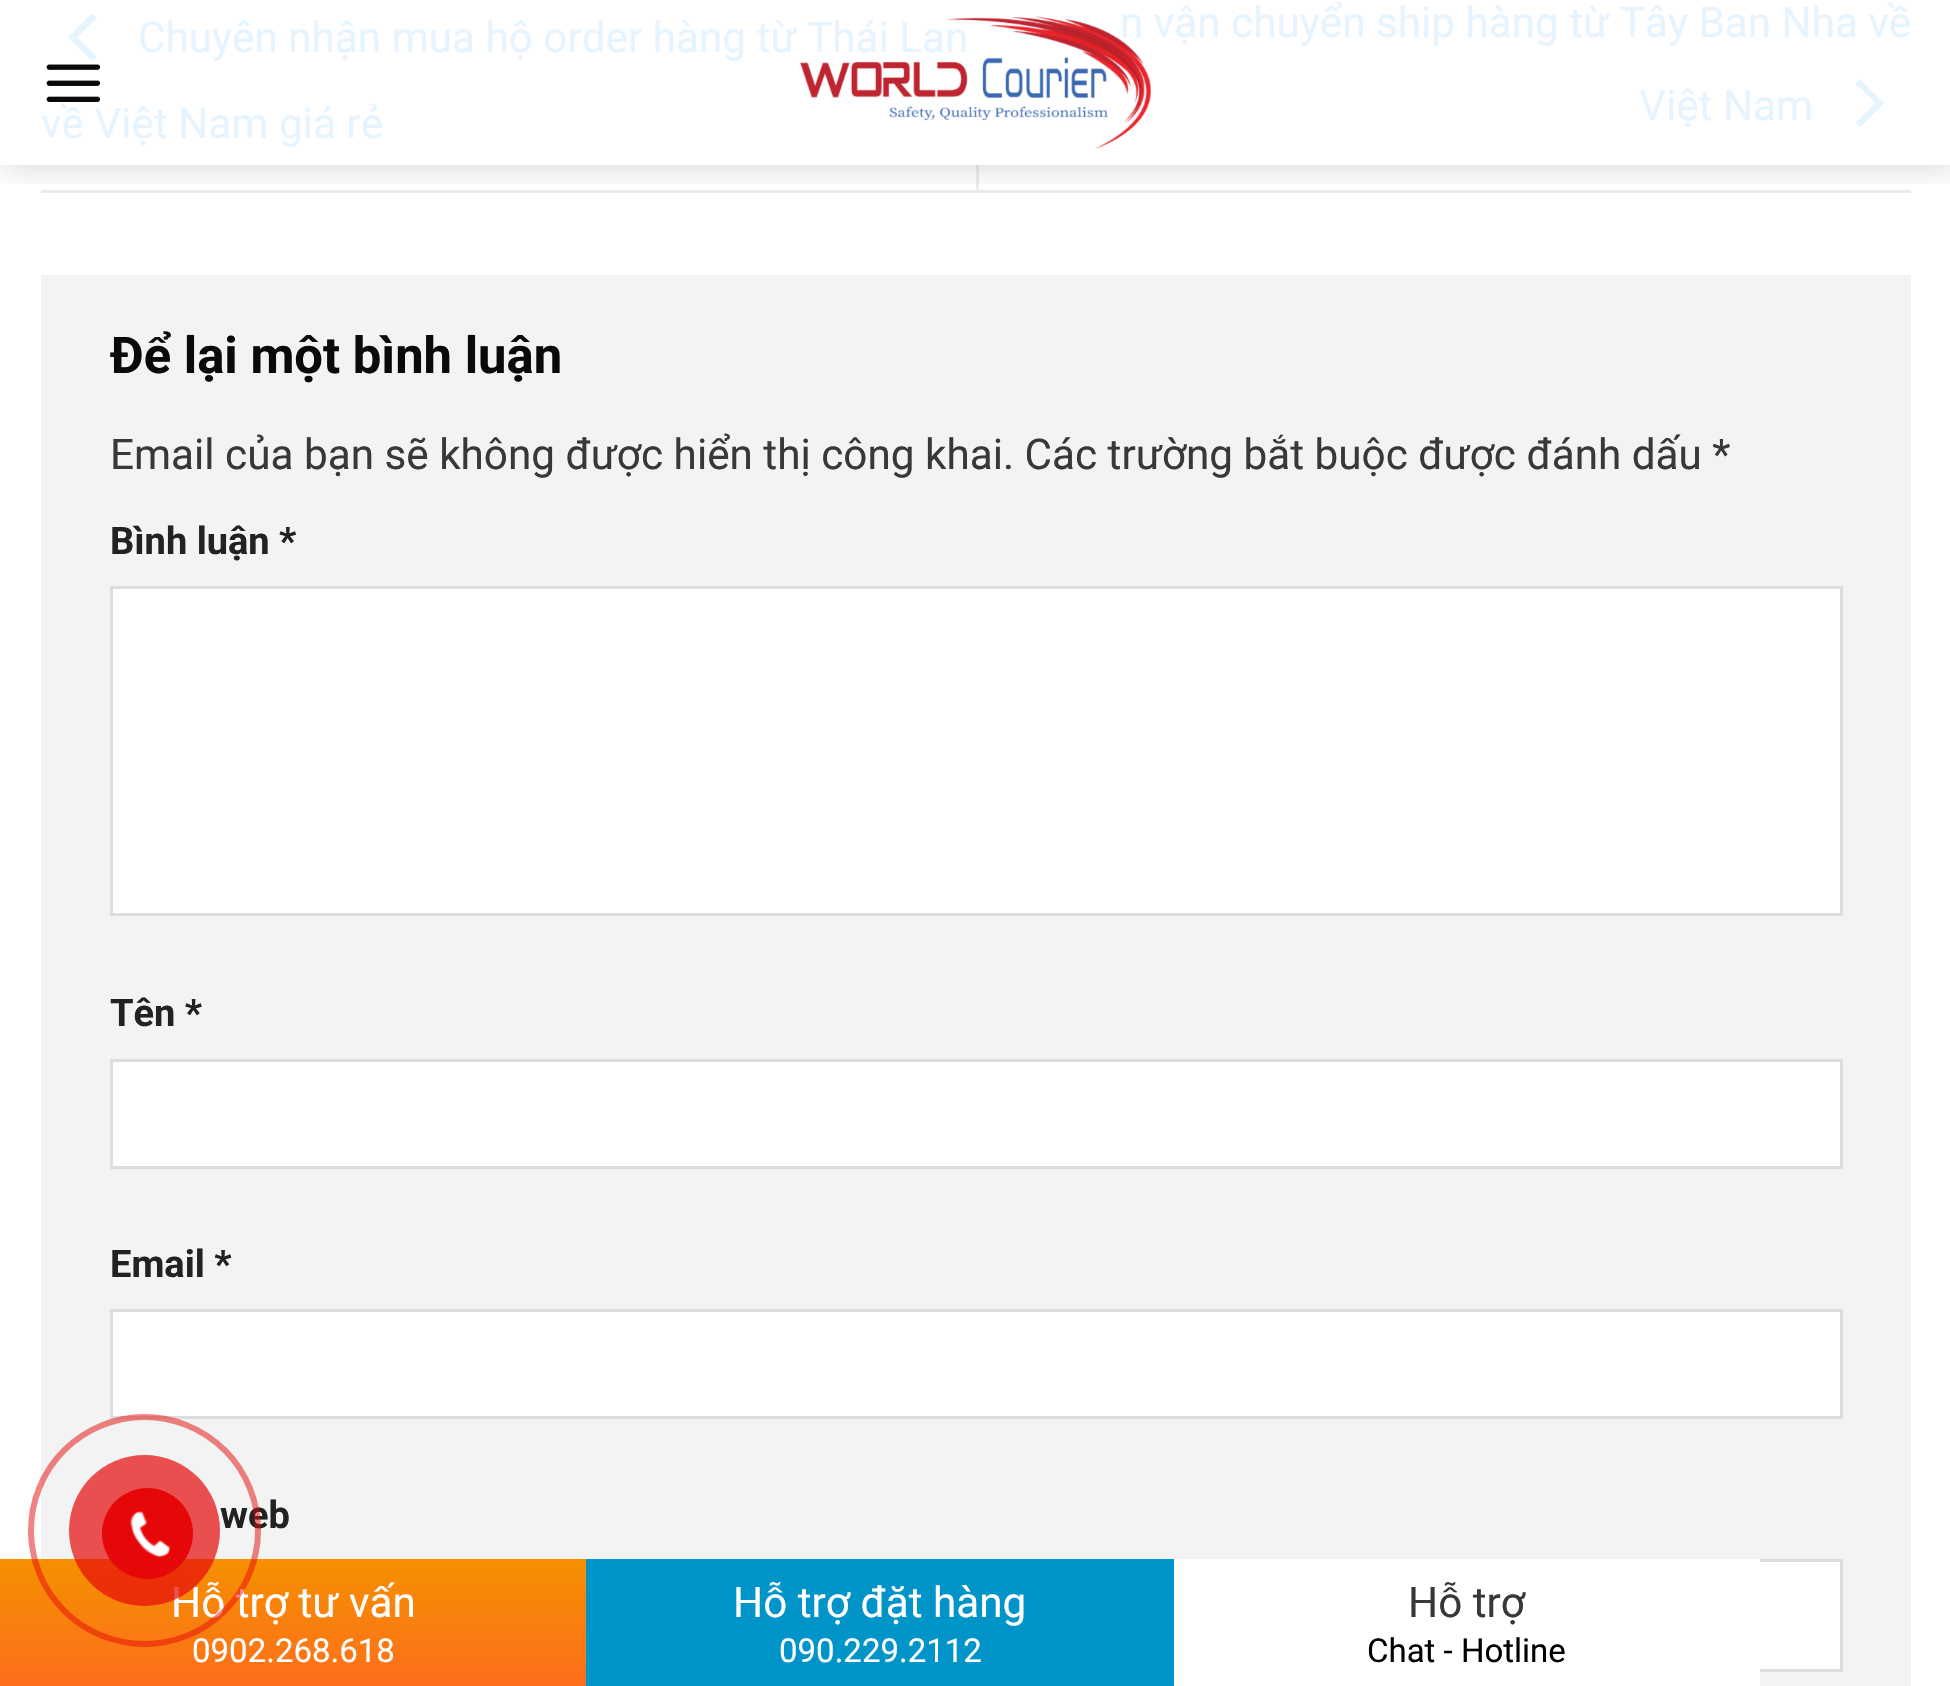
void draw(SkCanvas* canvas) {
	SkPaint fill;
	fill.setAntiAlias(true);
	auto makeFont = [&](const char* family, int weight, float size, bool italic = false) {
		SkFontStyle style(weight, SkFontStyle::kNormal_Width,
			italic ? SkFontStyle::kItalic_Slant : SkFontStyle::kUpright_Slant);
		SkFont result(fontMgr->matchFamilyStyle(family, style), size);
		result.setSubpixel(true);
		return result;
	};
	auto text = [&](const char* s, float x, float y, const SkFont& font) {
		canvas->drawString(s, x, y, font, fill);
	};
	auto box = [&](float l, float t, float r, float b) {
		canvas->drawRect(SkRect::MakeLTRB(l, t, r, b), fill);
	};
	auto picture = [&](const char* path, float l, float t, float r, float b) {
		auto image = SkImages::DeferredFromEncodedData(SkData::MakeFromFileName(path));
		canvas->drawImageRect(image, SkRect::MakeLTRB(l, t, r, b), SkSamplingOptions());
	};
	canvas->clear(0xFFFFFFFF);
	fill.setColor(0xFFECECEC);
	box(41, 190, 1911, 193);
	picture("image2.png", 68, 13, 97, 61);
	box(976, 165, 979, 190);
	picture("image3.png", 1856, 79, 1884, 127);
	canvas->save();
	canvas->clipRect(SkRect::MakeLTRB(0, 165, 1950, 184));
	fill.setColor(0x26000000);
	fill.setMaskFilter(SkMaskFilter::MakeBlur(kNormal_SkBlurStyle, 14));
	canvas->drawRect(SkRect::MakeLTRB(3, 3, 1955, 168), fill);
	fill.setMaskFilter(nullptr);
	canvas->restore();
	picture("image0.png", 46, 64, 101, 102);
	fill.setColor(0xFFF3F3F3);
	box(41, 275, 1911, 1686);
	fill.setColor(0xFFFFFFFF);
	canvas->drawRect(SkRect::MakeLTRB(111.5f, 587.5f, 1841.5f, 914.5f), fill);
	fill.setStyle(SkPaint::kStroke_Style);
	fill.setStrokeWidth(3);
	fill.setColor(0xFFDDDDDD);
	canvas->drawRect(SkRect::MakeLTRB(111.5f, 587.5f, 1841.5f, 914.5f), fill);
	fill.setStyle(SkPaint::kFill_Style);
	fill.setColor(0xFFFFFFFF);
	canvas->drawRect(SkRect::MakeLTRB(111.5f, 1060.5f, 1841.5f, 1167.5f), fill);
	fill.setStyle(SkPaint::kStroke_Style);
	fill.setColor(0xFFDDDDDD);
	canvas->drawRect(SkRect::MakeLTRB(111.5f, 1060.5f, 1841.5f, 1167.5f), fill);
	fill.setStyle(SkPaint::kFill_Style);
	fill.setColor(0xFFFFFFFF);
	canvas->drawRect(SkRect::MakeLTRB(111.5f, 1310.5f, 1841.5f, 1417.5f), fill);
	fill.setStyle(SkPaint::kStroke_Style);
	fill.setColor(0xFFDDDDDD);
	canvas->drawRect(SkRect::MakeLTRB(111.5f, 1310.5f, 1841.5f, 1417.5f), fill);
	fill.setStyle(SkPaint::kFill_Style);
	fill.setColor(0xFFFFFFFF);
	box(1760, 1562, 1840, 1669);
	fill.setStyle(SkPaint::kStroke_Style);
	fill.setColor(0xFFDDDDDD);
	canvas->drawRect(SkRect::MakeLTRB(111.5f, 1560.5f, 1841.5f, 1670.5f), fill);
	fill.setStyle(SkPaint::kFill_Style);
	fill.setColor(0xFFFFFFFF);
	box(1174, 1559, 1760, 1686);
	{
		const SkColor colors[] = {0xFFF59000, 0xFFFD6E1D};
		const float stops[] = {0, 1};
		const SkPoint ends[] = {{293, 1559}, {293, 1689}};
		fill.setShader(SkGradientShader::MakeLinear(ends, colors, stops, 2, SkTileMode::kClamp));
		fill.setAlpha(255);
	}
	box(0, 1559, 586, 1686);
	fill.setShader(nullptr);
	fill.setColor(0xFF0094C9);
	box(586, 1559, 1174, 1686);
	auto font1 = makeFont("Roboto", 400, 42.25f);
	fill.setColor(0xFFE6F4FF);
	text("Chuyên nhận mua hộ order hàng từ Thái Lan", 138, 52, font1);
	text("về Việt Nam giá rẻ", 41, 138, font1);
	text("n vận chuyển ship hàng từ Tây Ban Nha về", 1120, 37, font1);
	picture("image1.png", 799, 16, 1151, 149);
	text("Việt Nam", 1639, 120, font1);
	auto font2 = makeFont("Roboto", 700, 50.75f);
	fill.setColor(0xFF0A0A0A);
	text("Để lại một bình luận", 110, 373, font2);
	fill.setColor(0xFF383838);
	text("Email của bạn sẽ không được hiển thị công khai. Các trường bắt buộc được đánh dấu *", 110, 469, font1);
	auto font3 = makeFont("Roboto", 700, 38);
	fill.setColor(0xFF222222);
	text("Bình luận *", 110, 554, font3);
	text("Tên *", 110, 1026, font3);
	text("Email *", 110, 1277, font3);
	text("web", 220, 1528, font3);
	fill.setColor(0xFFFFFFFF);
	text("Hỗ trợ tư vấn", 171, 1617, font1);
	auto font4 = makeFont("Roboto", 400, 33);
	text("0902.268.618", 192, 1662, font4);
	fill.setStyle(SkPaint::kStroke_Style);
	fill.setStrokeWidth(6);
	fill.setColor(0x80E60808);
	canvas->drawCircle(144.5f, 1530.5f, 113.5f, fill);
	fill.setStyle(SkPaint::kFill_Style);
	fill.setColor(0xB3E60808);
	canvas->drawCircle(144.5f, 1530.5f, 75.5f, fill);
	fill.setColor(0xFFE60808);
	canvas->drawCircle(147.5f, 1533.5f, 45.5f, fill);
	picture("image4.png", 130, 1511, 170, 1558);
	fill.setColor(0xFFFFFFFF);
	text("Hỗ trợ đặt hàng", 733, 1617, font1);
	text("090.229.2112", 779, 1662, font4);
	fill.setColor(0xFF383838);
	text("Hỗ trợ", 1408, 1617, font1);
	fill.setColor(0xFF000000);
	text("Chat - Hotline", 1367, 1662, font4);
}
